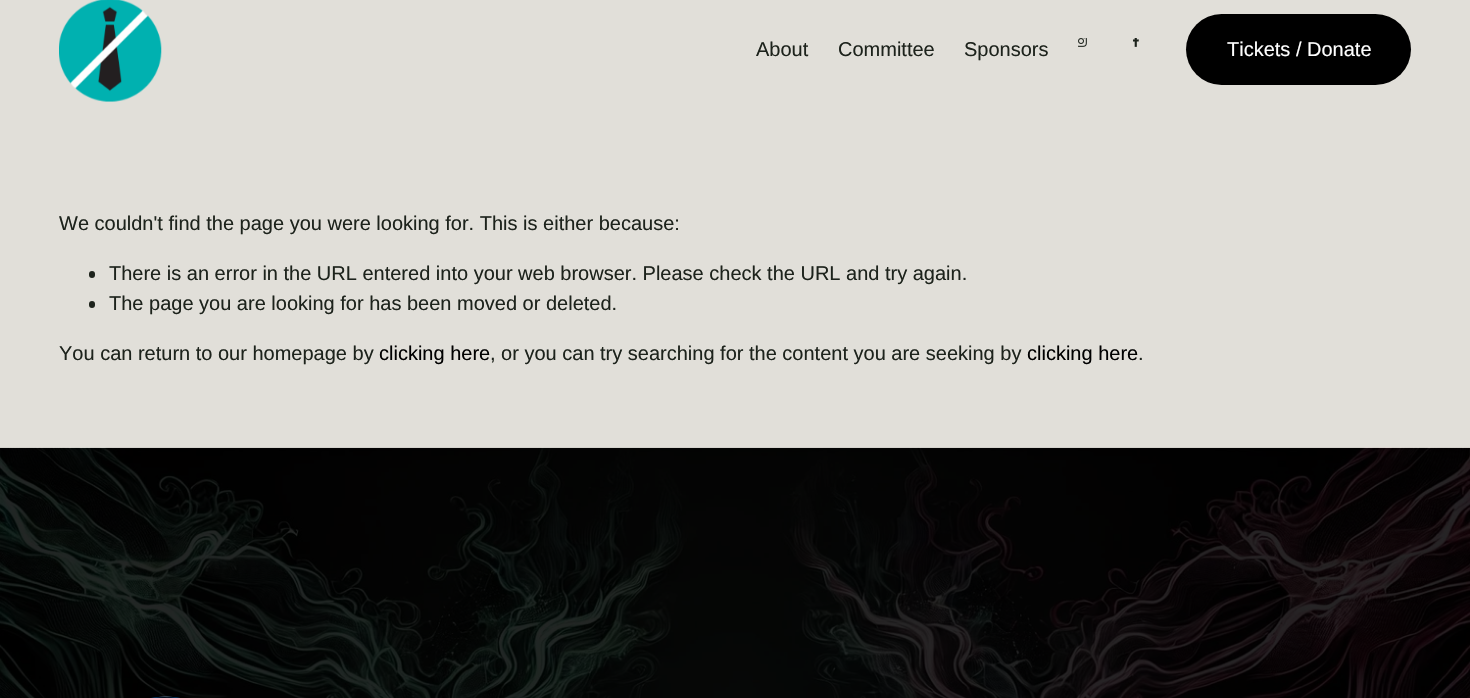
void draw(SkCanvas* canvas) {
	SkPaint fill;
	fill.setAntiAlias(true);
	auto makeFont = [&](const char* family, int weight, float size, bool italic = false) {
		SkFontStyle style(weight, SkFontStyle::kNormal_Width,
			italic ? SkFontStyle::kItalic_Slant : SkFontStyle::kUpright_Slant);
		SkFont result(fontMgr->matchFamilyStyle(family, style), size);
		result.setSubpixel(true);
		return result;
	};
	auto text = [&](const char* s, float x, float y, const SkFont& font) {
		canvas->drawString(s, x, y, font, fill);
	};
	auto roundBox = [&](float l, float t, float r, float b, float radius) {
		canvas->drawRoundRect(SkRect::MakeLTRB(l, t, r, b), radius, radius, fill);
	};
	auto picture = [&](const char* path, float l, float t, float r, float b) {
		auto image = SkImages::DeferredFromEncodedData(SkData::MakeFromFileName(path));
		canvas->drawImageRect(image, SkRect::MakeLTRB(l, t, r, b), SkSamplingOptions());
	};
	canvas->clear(0xFFE1DFD9);
	picture("image0.png", 59, 0, 162, 102);
	picture("image1.png", 1078, 38, 1087, 47);
	picture("image2.png", 1133, 38, 1139, 47);
	fill.setColor(0xFF000000);
	roundBox(1186, 14, 1411, 85, 35.5f);
	fill.setColor(0xFF1D231C);
	roundBox(89, 271, 95, 278, 3);
	roundBox(89, 301, 95, 308, 3);
	picture("image3.png", 0, 447, 1470, 698);
	picture("image4.png", 151, 696, 180, 698);
	auto font1 = makeFont("Arimo", 400, 20);
	text("About", 756, 56, font1);
	text("Committee", 838, 56, font1);
	text("Sponsors", 964, 56, font1);
	fill.setColor(0xFFFFFFFF);
	text("Tickets / Donate", 1227, 56, font1);
	fill.setColor(0xFF1D231C);
	text("We couldn't find the page you were looking for. This is either because:", 59, 230, font1);
	text("There is an error in the URL entered into your web browser. Please check the URL and try again.", 109, 280, font1);
	text("The page you are looking for has been moved or deleted.", 109, 310, font1);
	text("You can return to our homepage by", 59, 360, font1);
	fill.setColor(0xFF000000);
	text("clicking here", 379, 360, font1);
	fill.setColor(0xFF1D231C);
	text(", or you can try searching for the content you are seeking by", 490, 360, font1);
	fill.setColor(0xFF000000);
	text("clicking here", 1027, 360, font1);
	fill.setColor(0xFF1D231C);
	text(".", 1138, 360, font1);
}
